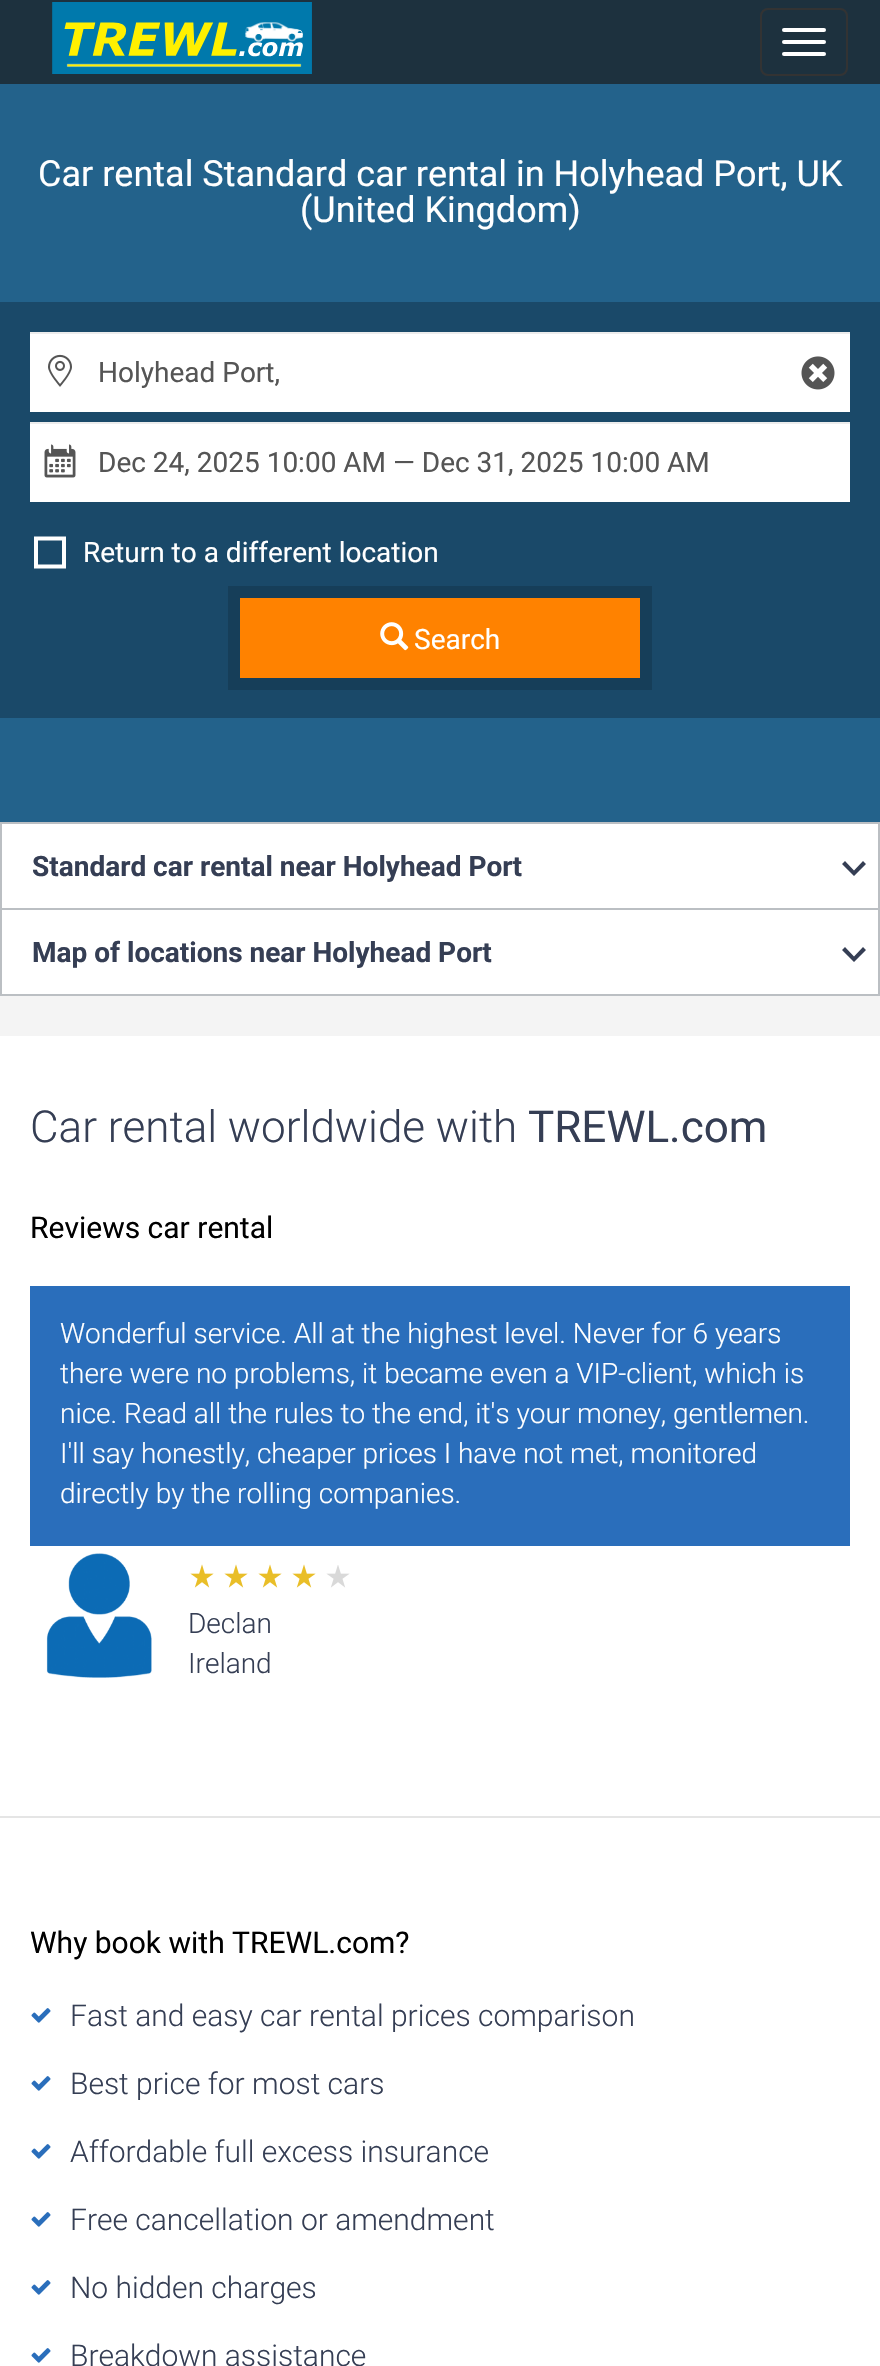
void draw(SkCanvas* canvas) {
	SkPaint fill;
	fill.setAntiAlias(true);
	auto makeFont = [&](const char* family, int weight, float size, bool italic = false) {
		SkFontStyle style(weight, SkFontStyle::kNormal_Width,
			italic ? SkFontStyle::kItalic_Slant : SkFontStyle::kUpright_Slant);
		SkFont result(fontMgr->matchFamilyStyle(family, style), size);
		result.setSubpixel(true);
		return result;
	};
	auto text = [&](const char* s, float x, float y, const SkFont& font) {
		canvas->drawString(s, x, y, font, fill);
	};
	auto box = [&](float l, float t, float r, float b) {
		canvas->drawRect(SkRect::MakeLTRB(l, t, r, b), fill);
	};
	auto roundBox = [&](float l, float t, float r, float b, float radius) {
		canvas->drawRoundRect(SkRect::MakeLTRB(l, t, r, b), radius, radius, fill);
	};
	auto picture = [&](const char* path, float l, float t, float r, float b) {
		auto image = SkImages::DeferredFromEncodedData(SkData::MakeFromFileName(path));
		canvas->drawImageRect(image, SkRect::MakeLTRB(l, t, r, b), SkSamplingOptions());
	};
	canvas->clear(0xFFF4F4F4);
	fill.setColor(0xFF1D313E);
	box(0, 0, 880, 84);
	picture("image0.png", 52, 2, 312, 74);
	fill.setStyle(SkPaint::kStroke_Style);
	fill.setStrokeWidth(2);
	fill.setColor(0xFF333333);
	canvas->drawRoundRect(SkRect::MakeLTRB(761, 9, 847, 75), 7, 7, fill);
	fill.setStyle(SkPaint::kFill_Style);
	fill.setColor(0xFFFFFFFF);
	roundBox(782, 28, 826, 32, 2);
	roundBox(782, 40, 826, 44, 2);
	roundBox(782, 52, 826, 56, 2);
	fill.setColor(0xFF23628B);
	box(0, 84, 880, 822);
	fill.setColor(0xFF1A4969);
	box(0, 302, 880, 718);
	fill.setColor(0xFFFFFFFF);
	box(30, 334, 850, 412);
	picture("image1.png", 48, 354, 72, 387);
	fill.setColor(0xFFECECEC);
	box(30, 332, 850, 334);
	picture("image2.png", 801, 356, 835, 390);
	fill.setColor(0xFFFFFFFF);
	box(30, 424, 850, 502);
	picture("image3.png", 44, 444, 76, 478);
	fill.setColor(0xFFECECEC);
	box(30, 422, 850, 424);
	fill.setColor(0xFFFFFFFF);
	canvas->drawPath(SkPathBuilder().moveTo(34, 536.5f).lineTo(34, 568.5f).lineTo(66, 568.5f).lineTo(66, 536.5f).close().moveTo(62, 564.5f).lineTo(38, 564.5f).lineTo(38, 540.5f).lineTo(62, 540.5f).close().detach(), fill);
	fill.setStyle(SkPaint::kStroke_Style);
	fill.setStrokeWidth(12);
	fill.setColor(0xFF163E59);
	canvas->drawRect(SkRect::MakeLTRB(234, 592, 646, 684), fill);
	fill.setStyle(SkPaint::kFill_Style);
	fill.setColor(0xFFFF8200);
	box(240, 598, 640, 678);
	picture("image4.png", 380, 622, 409, 651);
	fill.setColor(0xFFFFFFFF);
	canvas->drawRect(SkRect::MakeLTRB(1, 823, 879, 909), fill);
	fill.setStyle(SkPaint::kStroke_Style);
	fill.setStrokeWidth(2);
	fill.setColor(0xFFBBBFC3);
	canvas->drawRect(SkRect::MakeLTRB(1, 823, 879, 909), fill);
	fill.setStyle(SkPaint::kFill_Style);
	fill.setColor(0xFF353E54);
	canvas->drawPath(SkPathBuilder().moveTo(845, 861).lineTo(854, 870.5f).lineTo(863, 861).lineTo(866, 864).lineTo(854, 876).lineTo(842, 864).close().detach(), fill);
	fill.setColor(0xFFFFFFFF);
	canvas->drawRect(SkRect::MakeLTRB(1, 909, 879, 995), fill);
	fill.setStyle(SkPaint::kStroke_Style);
	fill.setColor(0xFFBBBFC3);
	canvas->drawRect(SkRect::MakeLTRB(1, 909, 879, 995), fill);
	fill.setStyle(SkPaint::kFill_Style);
	fill.setColor(0xFF353E54);
	canvas->drawPath(SkPathBuilder().moveTo(845, 947).lineTo(854, 956.5f).lineTo(863, 947).lineTo(866, 950).lineTo(854, 962).lineTo(842, 950).close().detach(), fill);
	fill.setColor(0xFFFFFFFF);
	box(0, 1036, 880, 2366);
	fill.setColor(0xFFE5E5E5);
	box(0, 1816, 880, 1818);
	fill.setColor(0xFF2A6EBB);
	box(30, 1286, 850, 1546);
	picture("image5.png", 46, 1553, 152, 1678);
	picture("image6.png", 190, 1564, 214, 1588);
	picture("image6.png", 224, 1564, 248, 1588);
	picture("image6.png", 258, 1564, 282, 1588);
	picture("image6.png", 292, 1564, 316, 1588);
	picture("image7.png", 326, 1565, 350, 1588);
	picture("image8.png", 31, 2008, 51, 2023);
	picture("image8.png", 31, 2076, 51, 2091);
	picture("image8.png", 31, 2144, 51, 2159);
	picture("image8.png", 31, 2212, 51, 2227);
	picture("image8.png", 31, 2280, 51, 2295);
	picture("image8.png", 31, 2348, 51, 2363);
	auto font1 = makeFont("Roboto", 400, 36);
	fill.setColor(0xFFFFFFFF);
	text("Car rental Standard car rental in Holyhead Port, UK", 38, 186, font1);
	text("(United Kingdom)", 300, 222, font1);
	auto font2 = makeFont("Roboto", 400, 28);
	fill.setColor(0xFF555555);
	text("Holyhead Port,", 98, 382, font2);
	text("Dec 24, 2025 10:00 AM — Dec 31, 2025 10:00 AM", 98, 472, font2);
	fill.setColor(0xFFFFFFFF);
	text("Return to a different location", 83, 562, font2);
	text("Search", 414, 649, font2);
	auto font3 = makeFont("Roboto", 700, 28);
	fill.setColor(0xFF353E54);
	text("Standard car rental near Holyhead Port", 32, 876, font3);
	text("Map of locations near Holyhead Port", 32, 962, font3);
	auto font4 = makeFont("Roboto", 300, 44);
	text("Car rental worldwide with", 30, 1142, font4);
	auto font5 = makeFont("Roboto", 400, 44);
	text("TREWL.com", 528, 1142, font5);
	auto font6 = makeFont("Roboto", 400, 30);
	fill.setColor(0xFF000000);
	text("Reviews car rental", 30, 1238, font6);
	auto font7 = makeFont("Roboto", 300, 28);
	fill.setColor(0xFFFFFFFF);
	text("Wonderful service. All at the highest level. Never for 6 years", 60, 1343, font7);
	text("there were no problems, it became even a VIP-client, which is", 60, 1383, font7);
	text("nice. Read all the rules to the end, it's your money, gentlemen.", 60, 1423, font7);
	text("I'll say honestly, cheaper prices I have not met, monitored", 60, 1463, font7);
	text("directly by the rolling companies.", 60, 1503, font7);
	fill.setColor(0xFF353E54);
	text("Declan", 188, 1633, font7);
	text("Ireland", 188, 1673, font7);
	fill.setColor(0xFF000000);
	text("Why book with TREWL.com?", 30, 1953, font6);
	auto font8 = makeFont("Roboto", 300, 30);
	fill.setColor(0xFF353E54);
	text("Fast and easy car rental prices comparison", 70, 2026, font8);
	text("Best price for most cars", 70, 2094, font8);
	text("Affordable full excess insurance", 70, 2162, font8);
	text("Free cancellation or amendment", 70, 2230, font8);
	text("No hidden charges", 70, 2298, font8);
	text("Breakdown assistance", 70, 2366, font8);
}
